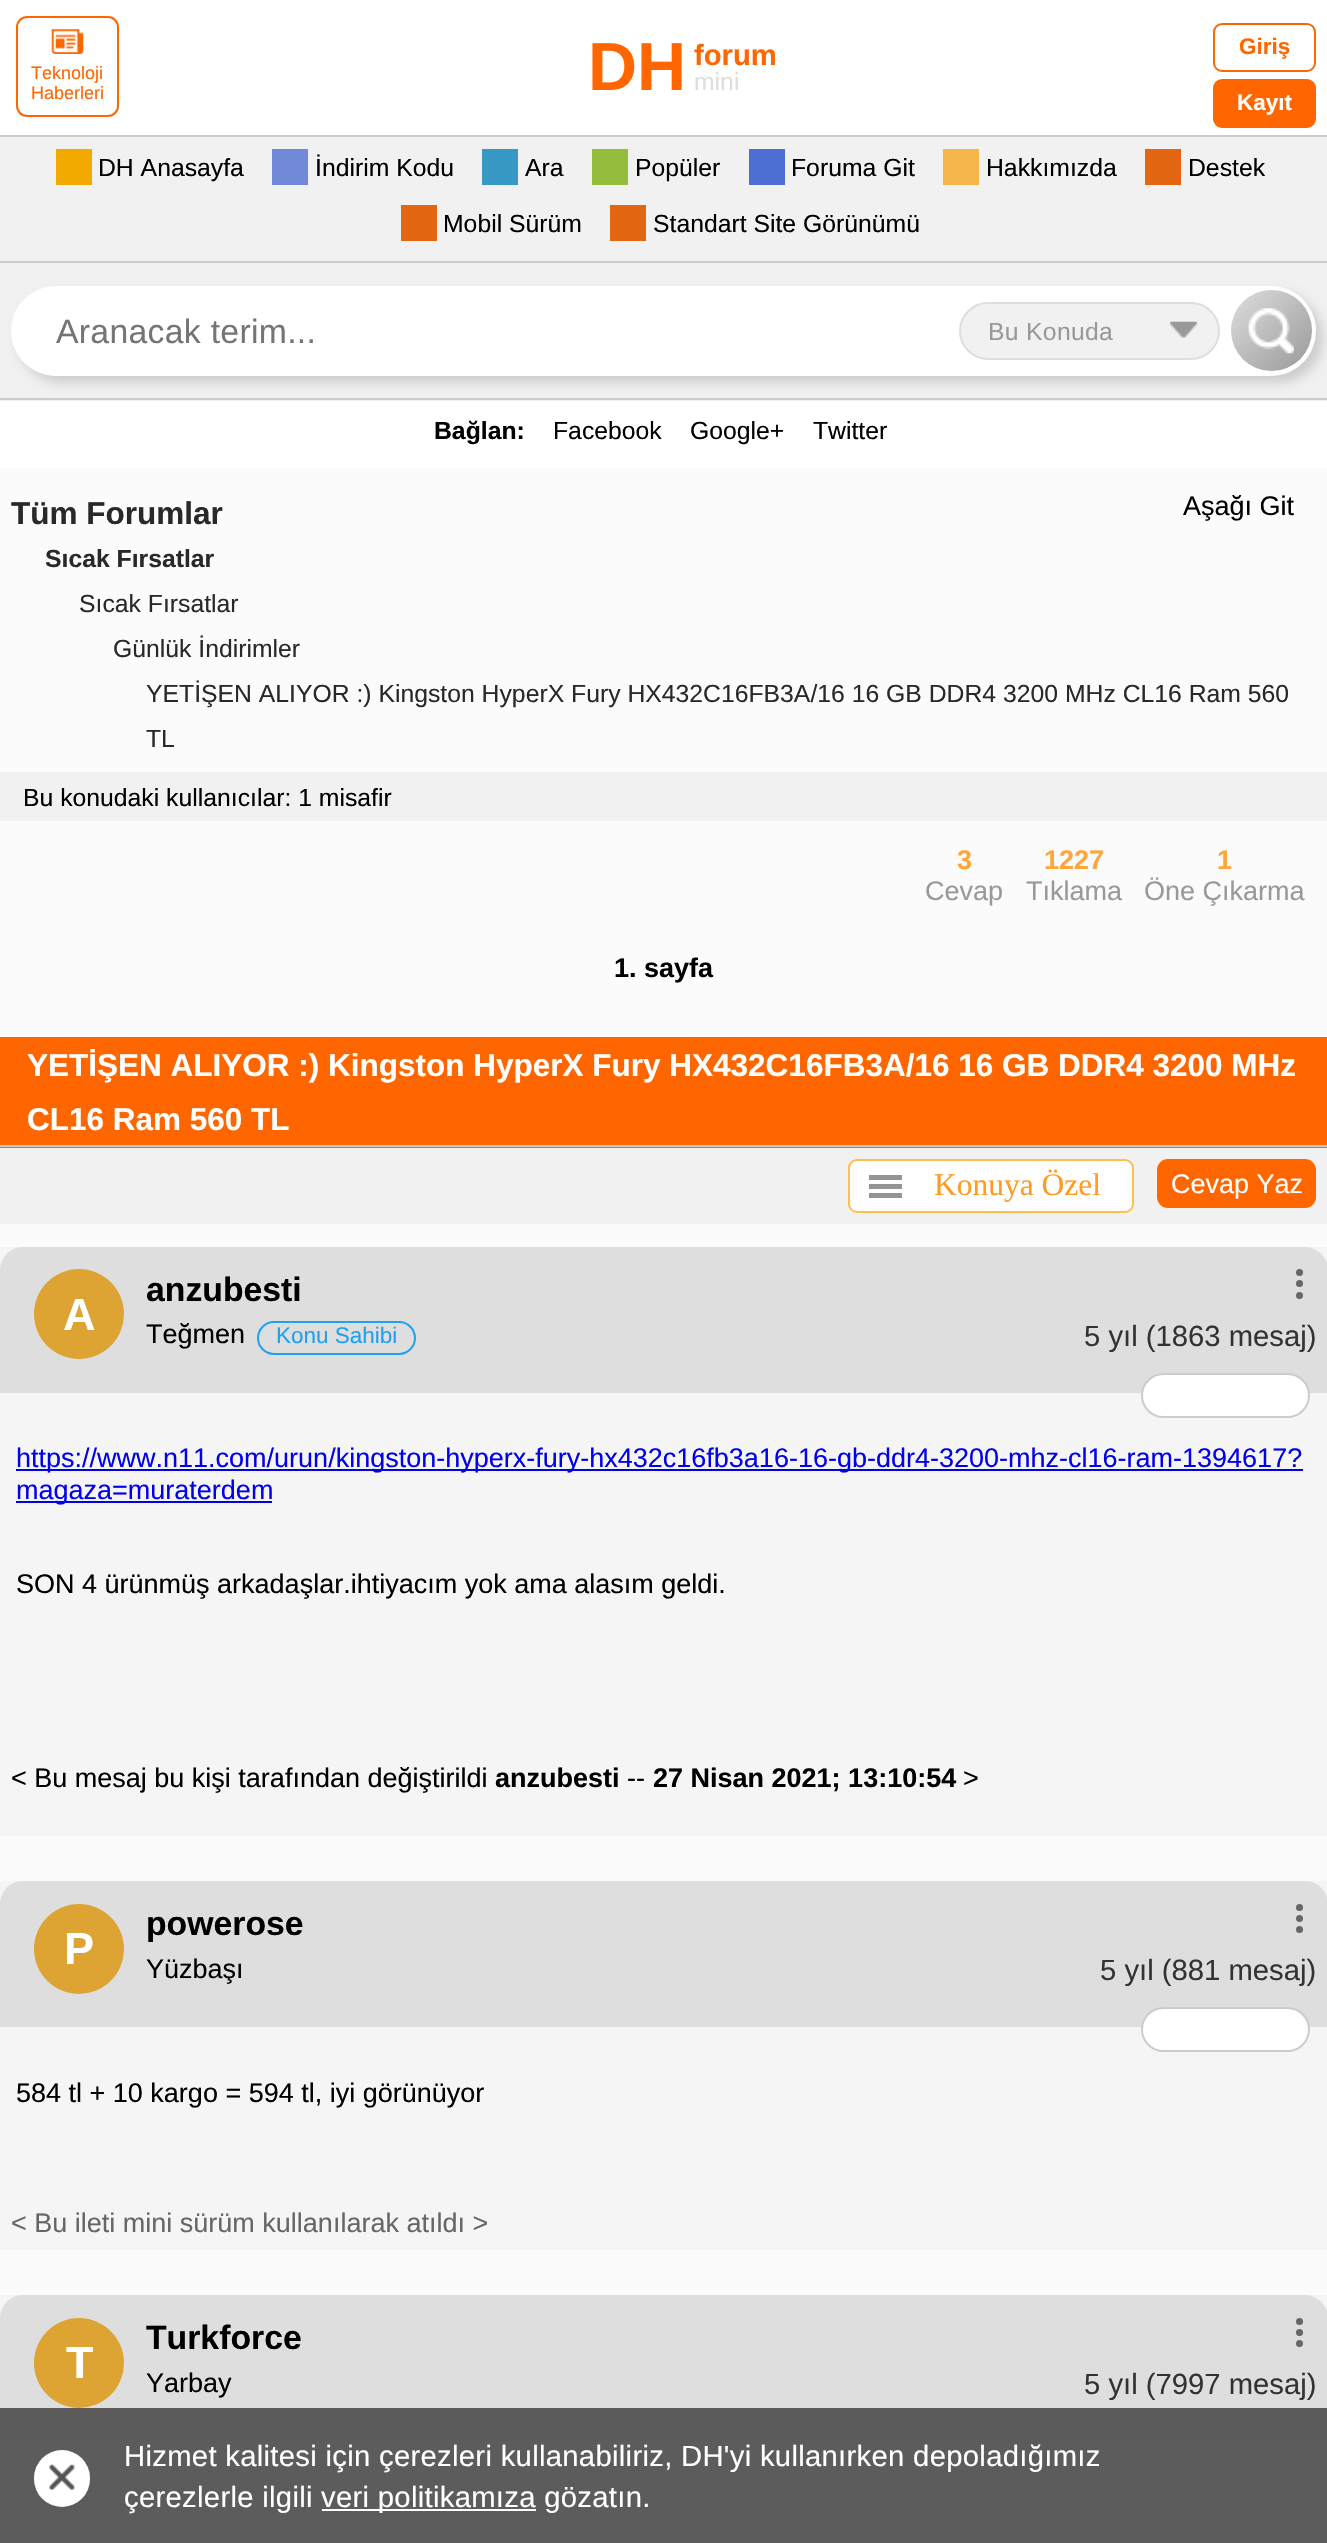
void draw(SkCanvas* canvas) {
	SkPaint fill;
	fill.setAntiAlias(true);
	auto makeFont = [&](const char* family, int weight, float size, bool italic = false) {
		SkFontStyle style(weight, SkFontStyle::kNormal_Width,
			italic ? SkFontStyle::kItalic_Slant : SkFontStyle::kUpright_Slant);
		SkFont result(fontMgr->matchFamilyStyle(family, style), size);
		result.setSubpixel(true);
		return result;
	};
	auto text = [&](const char* s, float x, float y, const SkFont& font) {
		canvas->drawString(s, x, y, font, fill);
	};
	auto spacedText = [&](const char* s, float x, float y, const SkFont& font, const SkPaint& ink, float letter, float word) {
		std::vector<SkGlyphID> glyphs(font.countText(s, strlen(s), SkTextEncoding::kUTF8));
		std::vector<float> xs(glyphs.size());
		font.textToGlyphs(s, strlen(s), SkTextEncoding::kUTF8, glyphs);
		font.getXPos(glyphs, xs, x);
		float extra = 0;
		for (size_t i = 0; i < glyphs.size(); i++) {
			xs[i] += extra;
			extra += letter + word * (glyphs[i] == font.unicharToGlyph(' '));
		}
		canvas->drawTextBlob(SkTextBlob::MakeFromPosHGlyphs(glyphs, xs, y, font), 0, 0, ink);
	};
	auto box = [&](float l, float t, float r, float b) {
		canvas->drawRect(SkRect::MakeLTRB(l, t, r, b), fill);
	};
	auto roundBox = [&](float l, float t, float r, float b, float radius) {
		canvas->drawRoundRect(SkRect::MakeLTRB(l, t, r, b), radius, radius, fill);
	};
	auto picture = [&](const char* path, float l, float t, float r, float b) {
		auto image = SkImages::DeferredFromEncodedData(SkData::MakeFromFileName(path));
		canvas->drawImageRect(image, SkRect::MakeLTRB(l, t, r, b), SkSamplingOptions());
	};
	canvas->clear(0xFFFBFBFB);
	fill.setColor(0xFFFFFFFF);
	box(0, 0, 1327, 135);
	fill.setColor(0xFFCCCCCC);
	box(0, 135, 1327, 137);
	fill.setStyle(SkPaint::kStroke_Style);
	fill.setStrokeWidth(2);
	fill.setColor(0xFFFF6600);
	canvas->drawRoundRect(SkRect::MakeLTRB(17, 17, 118, 116), 10, 10, fill);
	picture("image0.png", 51, 29, 84, 54);
	canvas->drawRoundRect(SkRect::MakeLTRB(1214, 24, 1315, 71), 8, 8, fill);
	fill.setStyle(SkPaint::kFill_Style);
	canvas->drawRoundRect(SkRect::MakeLTRB(1214, 80, 1315, 127), 8, 8, fill);
	fill.setStyle(SkPaint::kStroke_Style);
	canvas->drawRoundRect(SkRect::MakeLTRB(1214, 80, 1315, 127), 8, 8, fill);
	fill.setStyle(SkPaint::kFill_Style);
	fill.setColor(0xFFF1F1F1);
	box(0, 137, 1327, 261);
	fill.setColor(0xFFF3AA00);
	box(56, 149, 92, 185);
	fill.setColor(0xFF7288D8);
	box(272, 149, 308, 185);
	fill.setColor(0xFF3798C4);
	box(482, 149, 518, 185);
	fill.setColor(0xFF96BC3D);
	box(592, 149, 628, 185);
	fill.setColor(0xFF4D6FD4);
	box(749, 149, 785, 185);
	fill.setColor(0xFFF5B54A);
	box(943, 149, 979, 185);
	fill.setColor(0xFFE36713);
	box(1145, 149, 1181, 185);
	box(401, 205, 437, 241);
	box(610, 205, 646, 241);
	fill.setColor(0xFFF1F1F1);
	box(0, 263, 1327, 401);
	fill.setColor(0xFFCCCCCC);
	box(0, 261, 1327, 263);
	box(0, 398, 1327, 400);
	fill.setColor(0x26000000);
	fill.setMaskFilter(SkMaskFilter::MakeBlur(kNormal_SkBlurStyle, 5.5f));
	canvas->drawRoundRect(SkRect::MakeLTRB(18, 293, 1323, 383), 45, 45, fill);
	fill.setMaskFilter(nullptr);
	fill.setColor(0xFFFFFFFF);
	roundBox(11, 286, 1316, 376, 45);
	fill.setColor(0xFFF1F1F1);
	canvas->drawRoundRect(SkRect::MakeLTRB(960, 303, 1219, 359), 28, 28, fill);
	fill.setStyle(SkPaint::kStroke_Style);
	fill.setColor(0xFFDEDEDE);
	canvas->drawRoundRect(SkRect::MakeLTRB(960, 303, 1219, 359), 28, 28, fill);
	picture("image1.png", 1170, 321, 1197, 338);
	fill.setStyle(SkPaint::kFill_Style);
	{
		const SkColor colors[] = {0xFFDEDEDE, 0xFF999999};
		const float stops[] = {0, 1};
		const SkPoint ends[] = {{1231, 290}, {1312, 371}};
		fill.setShader(SkGradientShader::MakeLinear(ends, colors, stops, 2, SkTileMode::kClamp));
		fill.setAlpha(255);
	}
	canvas->drawCircle(1271.5f, 330.5f, 40.5f, fill);
	picture("image2.png", 1248, 308, 1294, 354);
	fill.setShader(nullptr);
	fill.setColor(0xFFFFFFFF);
	box(0, 401, 1327, 468);
	fill.setColor(0xFFF1F1F1);
	box(0, 772, 1327, 821);
	fill.setColor(0xFFFF6600);
	box(0, 1037, 1327, 1148);
	fill.setColor(0xFFCCCCCC);
	box(0, 1145, 1327, 1147);
	fill.setColor(0xFFF1F1F1);
	box(0, 1148, 1327, 1224);
	fill.setColor(0xFFFFFFFF);
	canvas->drawRoundRect(SkRect::MakeLTRB(849, 1160, 1133, 1212), 8, 8, fill);
	fill.setStyle(SkPaint::kStroke_Style);
	fill.setColor(0xFFFFBE4D);
	canvas->drawRoundRect(SkRect::MakeLTRB(849, 1160, 1133, 1212), 8, 8, fill);
	fill.setStyle(SkPaint::kFill_Style);
	fill.setColor(0xFF949494);
	box(869, 1175, 902, 1180);
	box(869, 1184, 902, 1189);
	box(869, 1193, 902, 1198);
	fill.setColor(0xFFFF6600);
	roundBox(1157, 1159, 1316, 1208, 11);
	fill.setColor(0xFFF5F5F5);
	box(0, 1247, 1327, 1836);
	fill.setColor(0xFFDEDEDE);
	canvas->drawPath(SkPathBuilder().moveTo(23, 1247).lineTo(1305, 1247).cubicTo(1317.5f, 1247, 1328, 1257.5f, 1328, 1270).lineTo(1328, 1393).lineTo(0, 1393).lineTo(0, 1270).cubicTo(0, 1257.5f, 10.5f, 1247, 23, 1247).close().detach(), fill);
	fill.setColor(0xFF666666);
	canvas->drawCircle(1299.5f, 1283.5f, 3.5f, fill);
	canvas->drawCircle(1299.5f, 1272.5f, 3.5f, fill);
	canvas->drawCircle(1299.5f, 1295.5f, 3.5f, fill);
	fill.setColor(0xFFDEA433);
	canvas->drawCircle(79, 1314, 45, fill);
	fill.setStyle(SkPaint::kStroke_Style);
	fill.setColor(0xFF1DA1F2);
	canvas->drawRoundRect(SkRect::MakeLTRB(258, 1322, 415, 1354), 16, 16, fill);
	fill.setStyle(SkPaint::kFill_Style);
	fill.setColor(0xFFFFFFFF);
	canvas->drawRoundRect(SkRect::MakeLTRB(1142, 1374, 1309, 1417), 21.5f, 21.5f, fill);
	fill.setStyle(SkPaint::kStroke_Style);
	fill.setColor(0xFFCCCCCC);
	canvas->drawRoundRect(SkRect::MakeLTRB(1142, 1374, 1309, 1417), 21.5f, 21.5f, fill);
	fill.setStyle(SkPaint::kFill_Style);
	fill.setColor(0xFF0000EE);
	box(16, 1469, 1303, 1471);
	box(16, 1501, 272, 1503);
	fill.setColor(0xFFF5F5F5);
	box(0, 1881, 1327, 2250);
	fill.setColor(0xFFDEDEDE);
	canvas->drawPath(SkPathBuilder().moveTo(23, 1881).lineTo(1305, 1881).cubicTo(1317.5f, 1881, 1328, 1891.5f, 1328, 1904).lineTo(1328, 2027).lineTo(0, 2027).lineTo(0, 1904).cubicTo(0, 1891.5f, 10.5f, 1881, 23, 1881).close().detach(), fill);
	fill.setColor(0xFF666666);
	canvas->drawCircle(1299.5f, 1918.5f, 3.5f, fill);
	canvas->drawCircle(1299.5f, 1907.5f, 3.5f, fill);
	canvas->drawCircle(1299.5f, 1929.5f, 3.5f, fill);
	fill.setColor(0xFFDEA433);
	canvas->drawCircle(79, 1949, 45, fill);
	fill.setColor(0xFFFFFFFF);
	canvas->drawRoundRect(SkRect::MakeLTRB(1142, 2008, 1309, 2051), 21.5f, 21.5f, fill);
	fill.setStyle(SkPaint::kStroke_Style);
	fill.setColor(0xFFCCCCCC);
	canvas->drawRoundRect(SkRect::MakeLTRB(1142, 2008, 1309, 2051), 21.5f, 21.5f, fill);
	fill.setStyle(SkPaint::kFill_Style);
	fill.setColor(0xFFF5F5F5);
	box(0, 2295, 1327, 2318);
	fill.setColor(0xFF5C5C5C);
	box(0, 2441, 1327, 2543);
	fill.setColor(0xFFDEDEDE);
	canvas->drawPath(SkPathBuilder().moveTo(23, 2295).lineTo(1305, 2295).cubicTo(1317.5f, 2295, 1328, 2305.5f, 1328, 2318).lineTo(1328, 2441).lineTo(0, 2441).lineTo(0, 2318).cubicTo(0, 2305.5f, 10.5f, 2295, 23, 2295).close().detach(), fill);
	fill.setColor(0xFF5B5B5B);
	box(0, 2408, 1327, 2441);
	fill.setColor(0xFF666666);
	canvas->drawCircle(1299.5f, 2332.5f, 3.5f, fill);
	canvas->drawCircle(1299.5f, 2321.5f, 3.5f, fill);
	canvas->drawCircle(1299.5f, 2343.5f, 3.5f, fill);
	fill.setColor(0xFFDEA433);
	canvas->drawCircle(79, 2363, 45, fill);
	fill.setColor(0xFFFFFFFF);
	roundBox(34, 2450, 90, 2507, 28);
	picture("image3.png", 48, 2464, 75, 2490);
	box(322, 2509, 536, 2511);
	auto font1 = makeFont("Liberation Sans", 400, 18);
	fill.setColor(0xFFFF6600);
	text("Teknoloji", 31, 79, font1);
	text("Haberleri", 31, 99, font1);
	auto font2 = makeFont("Liberation Sans", 700, 68);
	text("DH", 588, 90, font2);
	auto font3 = makeFont("Liberation Sans", 700, 29.25f);
	text("forum", 694, 65, font3);
	auto font4 = makeFont("Liberation Sans", 400, 24.75f);
	fill.setColor(0xFFDEDEDE);
	text("mini", 694, 90, font4);
	auto font5 = makeFont("Liberation Sans", 700, 22.5f);
	fill.setColor(0xFFFF6600);
	text("Giriş", 1239, 54, font5);
	fill.setColor(0xFFFFFFFF);
	text("Kayıt", 1237, 110, font5);
	fill.setColor(0xFF000000);
	text("DH Anasayfa", 98, 176, font4);
	text("İndirim Kodu", 315, 176, font4);
	text("Ara", 525, 176, font4);
	text("Popüler", 635, 176, font4);
	text("Foruma Git", 791, 176, font4);
	text("Hakkımızda", 986, 176, font4);
	text("Destek", 1188, 176, font4);
	text("Mobil Sürüm", 443, 232, font4);
	text("Standart Site Görünümü", 653, 232, font4);
	auto font6 = makeFont("Liberation Sans", 400, 33.75f);
	fill.setColor(0xFF757575);
	spacedText("Aranacak terim...", 56, 343, font6, fill, 0.3f, 0);
	fill.setColor(0xFF999999);
	spacedText("Bu Konuda", 988, 340, font4, fill, 0.3f, 0);
	auto font7 = makeFont("Liberation Sans", 700, 24.75f);
	fill.setColor(0xFF000000);
	text("Bağlan:", 434, 439, font7);
	text("Facebook", 553, 439, font4);
	text("Google+", 690, 439, font4);
	text("Twitter", 813, 439, font4);
	auto font8 = makeFont("Liberation Sans", 700, 31.5f);
	fill.setColor(0xFF292929);
	text("Tüm Forumlar", 11, 524, font8);
	auto font9 = makeFont("Liberation Sans", 400, 27);
	fill.setColor(0xFF000000);
	text("Aşağı Git", 1183, 515, font9);
	fill.setColor(0xFF292929);
	text("Sıcak Fırsatlar", 45, 567, font7);
	text("Sıcak Fırsatlar", 79, 612, font4);
	text("Günlük İndirimler", 113, 657, font4);
	text("YETİŞEN ALIYOR :) Kingston HyperX Fury HX432C16FB3A/16 16 GB DDR4 3200 MHz CL16 Ram 560", 146, 702, font4);
	text("TL", 146, 747, font4);
	fill.setColor(0xFF000000);
	text("Bu konudaki kullanıcılar: 1 misafir", 23, 806, font4);
	auto font10 = makeFont("Liberation Sans", 700, 27);
	fill.setColor(0xFFFFA53A);
	text("3", 957, 869, font10);
	fill.setColor(0xFF999999);
	text("Cevap", 925, 900, font9);
	fill.setColor(0xFFFFA53A);
	text("1227", 1044, 869, font10);
	fill.setColor(0xFF999999);
	text("Tıklama", 1026, 900, font9);
	fill.setColor(0xFFFFA53A);
	text("1", 1217, 869, font10);
	fill.setColor(0xFF999999);
	text("Öne Çıkarma", 1144, 900, font9);
	fill.setColor(0xFF000000);
	text("1. sayfa", 614, 977, font10);
	fill.setColor(0xFFFFFFFF);
	text("YETİŞEN ALIYOR :) Kingston HyperX Fury HX432C16FB3A/16 16 GB DDR4 3200 MHz", 27, 1076, font8);
	text("CL16 Ram 560 TL", 27, 1130, font8);
	auto font11 = makeFont("Liberation Serif", 400, 31.5f);
	fill.setColor(0xFFFF9A22);
	text("Konuya Özel", 934, 1195, font11);
	fill.setColor(0xFFFFFFFF);
	text("Cevap Yaz", 1171, 1193, font9);
	auto font12 = makeFont("Liberation Sans", 700, 33.75f);
	fill.setColor(0xFF000000);
	text("anzubesti", 146, 1301, font12);
	auto font13 = makeFont("Liberation Sans", 700, 45);
	fill.setColor(0xFFFFFFFF);
	spacedText("A", 63, 1330, font13, fill, -1, 0);
	fill.setColor(0xFF000000);
	text("Teğmen", 146, 1343, font9);
	auto font14 = makeFont("Liberation Sans", 400, 22.5f);
	fill.setColor(0xFF1DA1F2);
	text("Konu Sahibi", 276, 1343, font14);
	auto font15 = makeFont("Liberation Sans", 400, 29.25f);
	fill.setColor(0xFF333333);
	text("5 yıl (1863 mesaj)", 1084, 1346, font15);
	fill.setColor(0xFF0000EE);
	text("https://www.n11.com/urun/kingston-hyperx-fury-hx432c16fb3a16-16-gb-ddr4-3200-mhz-cl16-ram-1394617?", 16, 1467, font9);
	text("magaza=muraterdem", 16, 1499, font9);
	fill.setColor(0xFF000000);
	text("SON 4 ürünmüş arkadaşlar.ihtiyacım yok ama alasım geldi.", 16, 1593, font9);
	text("< Bu mesaj bu kişi tarafından değiştirildi", 11, 1787, font9);
	text("anzubesti", 495, 1787, font10);
	text("--", 627, 1787, font9);
	text("27 Nisan 2021; 13:10:54", 653, 1787, font10);
	text(">", 963, 1787, font9);
	text("powerose", 146, 1935, font12);
	fill.setColor(0xFFFFFFFF);
	spacedText("P", 64, 1964, font13, fill, -1, 0);
	fill.setColor(0xFF000000);
	text("Yüzbaşı", 146, 1978, font9);
	fill.setColor(0xFF333333);
	text("5 yıl (881 mesaj)", 1100, 1980, font15);
	fill.setColor(0xFF000000);
	text("584 tl + 10 kargo = 594 tl, iyi görünüyor", 16, 2102, font9);
	fill.setColor(0xFF666666);
	text("< Bu ileti mini sürüm kullanılarak atıldı >", 11, 2232, font9);
	fill.setColor(0xFF000000);
	text("Turkforce", 146, 2349, font12);
	fill.setColor(0xFFFFFFFF);
	spacedText("T", 66, 2378, font13, fill, -1, 0);
	fill.setColor(0xFF000000);
	text("Yarbay", 146, 2392, font9);
	fill.setColor(0xFF333333);
	text("5 yıl (7997 mesaj)", 1084, 2394, font15);
	fill.setColor(0xFFFFFFFF);
	spacedText("Hizmet kalitesi için çerezleri kullanabiliriz, DH'yi kullanırken depoladığımız", 124, 2466, font15, fill, 0.3f, 0);
	spacedText("çerezlerle ilgili", 124, 2507, font15, fill, 0.3f, 0);
	spacedText("veri politikamıza gözatın.", 321, 2507, font15, fill, 0.3f, 0);
}
